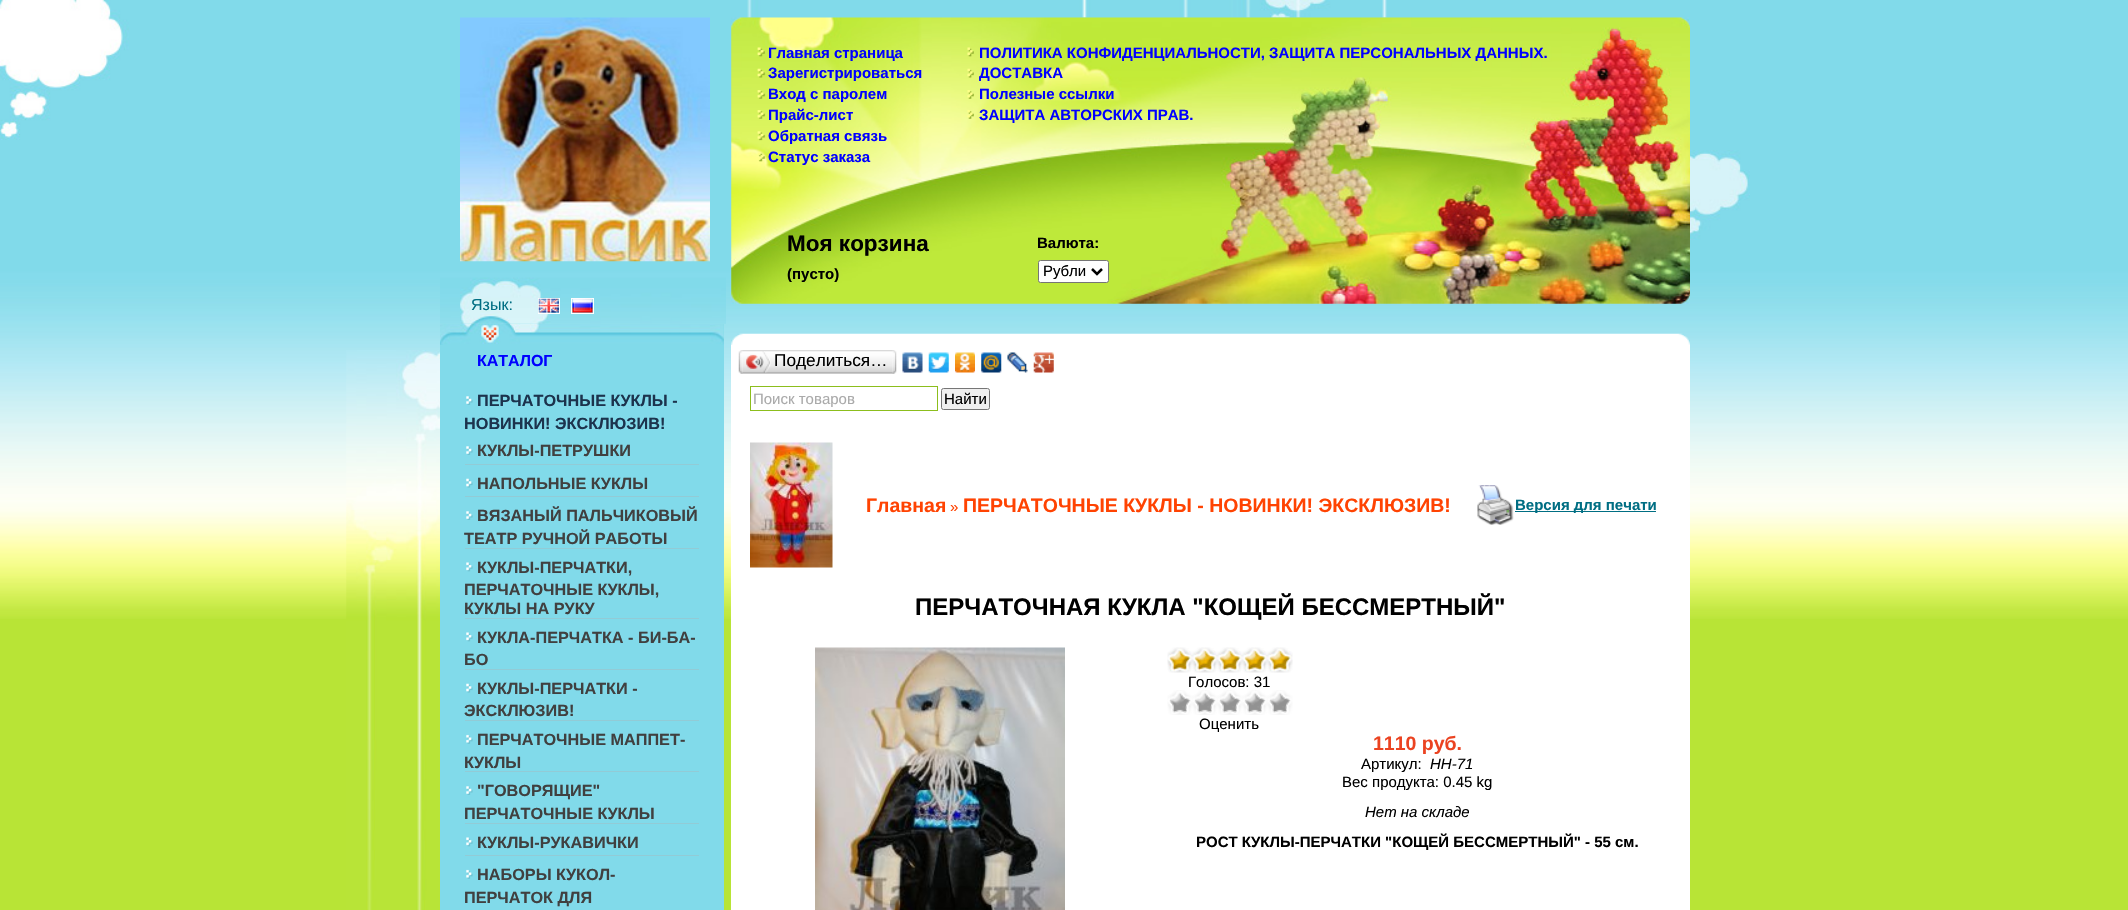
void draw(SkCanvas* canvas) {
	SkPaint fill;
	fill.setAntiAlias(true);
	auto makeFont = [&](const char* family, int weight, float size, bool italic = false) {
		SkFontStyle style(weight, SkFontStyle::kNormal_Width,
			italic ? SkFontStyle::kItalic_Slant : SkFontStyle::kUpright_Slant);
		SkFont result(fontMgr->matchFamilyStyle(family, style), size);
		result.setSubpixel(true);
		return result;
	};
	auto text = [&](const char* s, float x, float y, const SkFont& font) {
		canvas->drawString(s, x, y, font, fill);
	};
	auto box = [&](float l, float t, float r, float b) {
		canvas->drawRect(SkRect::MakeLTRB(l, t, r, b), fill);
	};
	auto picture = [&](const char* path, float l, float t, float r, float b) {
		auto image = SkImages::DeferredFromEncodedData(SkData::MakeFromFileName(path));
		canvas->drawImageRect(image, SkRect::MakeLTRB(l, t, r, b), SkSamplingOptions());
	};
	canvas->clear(0xFFB8E436);
	picture("image0.png", 0, 0, 2128, 619);
	picture("image1.png", 0, 0, 129, 140);
	picture("image2.png", 747, 0, 1387, 18);
	picture("image3.png", 731, 17, 1690, 304);
	picture("image4.png", 757, 47, 765, 57);
	picture("image5.png", 757, 68, 766, 78);
	picture("image6.png", 757, 90, 766, 99);
	picture("image7.png", 757, 110, 766, 119);
	picture("image8.png", 757, 131, 766, 141);
	picture("image9.png", 757, 152, 766, 162);
	picture("image10.png", 967, 47, 974, 57);
	picture("image11.png", 967, 68, 974, 78);
	picture("image12.png", 967, 90, 974, 99);
	picture("image13.png", 967, 110, 974, 119);
	fill.setColor(0xFFFFFFFF);
	canvas->drawRoundRect(SkRect::MakeLTRB(1038.5f, 260.5f, 1108.5f, 282.5f), 2, 2, fill);
	fill.setStyle(SkPaint::kStroke_Style);
	fill.setStrokeWidth(1);
	fill.setColor(0xFF767676);
	canvas->drawRoundRect(SkRect::MakeLTRB(1038.5f, 260.5f, 1108.5f, 282.5f), 2, 2, fill);
	fill.setStrokeWidth(2.5f);
	fill.setColor(0xFF000000);
	canvas->drawPath(SkPathBuilder().moveTo(1092, 269).lineTo(1097, 274).lineTo(1102, 269).detach(), fill);
	picture("image14.png", 440, 277, 726, 324);
	picture("image15.png", 460, 17, 710, 262);
	fill.setStrokeWidth(1);
	fill.setColor(0xFFFFFFFF);
	canvas->drawRect(SkRect::MakeLTRB(538.5f, 298.5f, 559.5f, 313.5f), fill);
	picture("image16.png", 538, 298, 559, 313);
	canvas->drawRect(SkRect::MakeLTRB(571.5f, 298.5f, 593.5f, 313.5f), fill);
	picture("image17.png", 572, 298, 593, 313);
	fill.setStyle(SkPaint::kFill_Style);
	fill.setColor(0xFF81DAEA);
	box(440, 324, 724, 910);
	picture("image18.png", 440, 323, 724, 345);
	picture("image19.png", 466, 396, 473, 405);
	fill.setColor(0xFF92CBD6);
	box(465, 464, 699, 465);
	picture("image19.png", 466, 446, 473, 455);
	box(465, 496, 699, 497);
	picture("image20.png", 466, 478, 473, 488);
	box(465, 548, 699, 549);
	picture("image19.png", 466, 511, 473, 520);
	box(465, 618, 699, 619);
	picture("image21.png", 466, 562, 473, 572);
	box(465, 669, 699, 670);
	picture("image21.png", 466, 632, 473, 642);
	box(465, 720, 699, 721);
	picture("image20.png", 466, 683, 473, 693);
	box(465, 771, 699, 772);
	picture("image22.png", 466, 734, 473, 744);
	box(465, 823, 699, 824);
	picture("image19.png", 466, 786, 473, 795);
	box(465, 855, 699, 856);
	picture("image21.png", 466, 837, 473, 847);
	picture("image22.png", 466, 869, 473, 879);
	picture("image23.png", 731, 333, 1690, 345);
	fill.setColor(0xFFFFFFFF);
	box(731, 345, 1690, 910);
	picture("image24.png", 742, 350, 893, 374);
	picture("image25.png", 738, 350, 743, 374);
	picture("image26.png", 746, 351, 771, 373);
	picture("image27.png", 892, 350, 897, 374);
	picture("image28.png", 902, 352, 923, 373);
	picture("image29.png", 928, 352, 949, 373);
	picture("image30.png", 955, 352, 975, 373);
	picture("image31.png", 981, 352, 1002, 373);
	picture("image32.png", 1007, 352, 1028, 373);
	picture("image33.png", 1033, 352, 1054, 373);
	fill.setStyle(SkPaint::kStroke_Style);
	fill.setColor(0xFF8CBE1D);
	canvas->drawRect(SkRect::MakeLTRB(750.5f, 386.5f, 937.5f, 410.5f), fill);
	fill.setStyle(SkPaint::kFill_Style);
	fill.setColor(0xFFEFEFEF);
	canvas->drawRoundRect(SkRect::MakeLTRB(941.5f, 388.5f, 989.5f, 409.5f), 2, 2, fill);
	fill.setStyle(SkPaint::kStroke_Style);
	fill.setColor(0xFF767676);
	canvas->drawRoundRect(SkRect::MakeLTRB(941.5f, 388.5f, 989.5f, 409.5f), 2, 2, fill);
	picture("image34.png", 750, 442, 833, 568);
	picture("image35.png", 1477, 485, 1514, 525);
	fill.setStyle(SkPaint::kFill_Style);
	fill.setColor(0xFF006E83);
	box(1515, 511, 1656, 512);
	picture("image36.png", 815, 647, 1065, 910);
	picture("image37.png", 1167, 647, 1293, 673);
	picture("image39.png", 1169, 650, 1279, 652);
	picture("image38.png", 1169, 648, 1292, 671);
	picture("image40.png", 1167, 690, 1293, 715);
	picture("image41.png", 1170, 695, 1291, 713);
	picture("image42.png", 1690, 150, 1750, 240);
	picture("image43.png", 346, 350, 440, 910);
	auto font1 = makeFont("Liberation Sans", 700, 15);
	fill.setColor(0xFF0000FF);
	text("Главная страница", 768, 58, font1);
	text("Зарегистрироваться", 768, 78, font1);
	text("Вход с паролем", 768, 99, font1);
	text("Прайс-лист", 768, 120, font1);
	text("Обратная связь", 768, 141, font1);
	text("Статус заказа", 768, 162, font1);
	text("ПОЛИТИКА КОНФИДЕНЦИАЛЬНОСТИ, ЗАЩИТА ПЕРСОНАЛЬНЫХ ДАННЫХ.", 979, 58, font1);
	text("ДОСТАВКА", 979, 78, font1);
	text("Полезные ссылки", 979, 99, font1);
	text("ЗАЩИТА АВТОРСКИХ ПРАВ.", 979, 120, font1);
	auto font2 = makeFont("Liberation Sans", 700, 22.5f);
	fill.setColor(0xFF000000);
	text("Моя корзина", 787, 251, font2);
	text("(пусто)", 787, 279, font1);
	text("Валюта:", 1037, 248, font1);
	auto font3 = makeFont("Liberation Sans", 400, 15);
	text("Рубли", 1043, 276, font3);
	auto font4 = makeFont("Liberation Sans", 400, 16);
	fill.setColor(0xFF006E83);
	text("Язык:", 471, 310, font4);
	auto font5 = makeFont("Liberation Sans", 700, 16);
	fill.setColor(0xFF0000FF);
	text("КАТАЛОГ", 477, 366, font5);
	auto font6 = makeFont("Liberation Sans", 700, 16.25f);
	fill.setColor(0xFF1C334D);
	text("ПЕРЧАТОЧНЫЕ КУКЛЫ -", 477, 406, font6);
	text("НОВИНКИ! ЭКСКЛЮЗИВ!", 464, 429, font6);
	fill.setColor(0xFF404040);
	text("КУКЛЫ-ПЕТРУШКИ", 477, 456, font6);
	text("НАПОЛЬНЫЕ КУКЛЫ", 477, 489, font6);
	text("ВЯЗАНЫЙ ПАЛЬЧИКОВЫЙ", 477, 521, font6);
	text("ТЕАТР РУЧНОЙ РАБОТЫ", 464, 544, font6);
	text("КУКЛЫ-ПЕРЧАТКИ,", 477, 573, font6);
	text("ПЕРЧАТОЧНЫЕ КУКЛЫ,", 464, 595, font6);
	text("КУКЛЫ НА РУКУ", 464, 614, font6);
	text("КУКЛА-ПЕРЧАТКА - БИ-БА-", 477, 643, font6);
	text("БО", 464, 665, font6);
	text("КУКЛЫ-ПЕРЧАТКИ -", 477, 694, font6);
	text("ЭКСКЛЮЗИВ!", 464, 716, font6);
	text("ПЕРЧАТОЧНЫЕ МАППЕТ-", 477, 745, font6);
	text("КУКЛЫ", 464, 768, font6);
	text("\"ГОВОРЯЩИЕ\"", 477, 796, font6);
	text("ПЕРЧАТОЧНЫЕ КУКЛЫ", 464, 819, font6);
	text("КУКЛЫ-РУКАВИЧКИ", 477, 848, font6);
	text("НАБОРЫ КУКОЛ-", 477, 880, font6);
	text("ПЕРЧАТОК ДЛЯ", 464, 903, font6);
	auto font7 = makeFont("Liberation Sans", 400, 17.25f);
	fill.setColor(0xFF000000);
	text("Поделиться…", 774, 366, font7);
	fill.setColor(0xFFAAAAAA);
	text("Поиск товаров", 753, 404, font3);
	fill.setColor(0xFF000000);
	text("Найти", 944, 404, font3);
	auto font8 = makeFont("Liberation Sans", 700, 19.5f);
	fill.setColor(0xFFFF4302);
	text("Главная", 866, 512, font8);
	text("»", 950, 512, font3);
	text("ПЕРЧАТОЧНЫЕ КУКЛЫ - НОВИНКИ! ЭКСКЛЮЗИВ!", 963, 512, font8);
	fill.setColor(0xFF006E83);
	text("Версия для печати", 1515, 510, font1);
	auto font9 = makeFont("Liberation Sans", 700, 24);
	fill.setColor(0xFF000000);
	text("ПЕРЧАТОЧНАЯ КУКЛА \"КОЩЕЙ БЕССМЕРТНЫЙ\"", 915, 615, font9);
	text("Голосов: 31", 1188, 687, font3);
	text("Оценить", 1199, 729, font3);
	fill.setColor(0xFFEB4321);
	text("1110 руб.", 1373, 750, font8);
	fill.setColor(0xFF000000);
	text("Артикул:", 1361, 769, font3);
	auto font10 = makeFont("Liberation Sans", 400, 15, true);
	text("НН-71", 1430, 769, font10);
	text("Вес продукта: 0.45 kg", 1342, 787, font3);
	text("Нет на складе", 1365, 817, font10);
	text("РОСТ КУКЛЫ-ПЕРЧАТКИ \"КОЩЕЙ БЕССМЕРТНЫЙ\" - 55 см.", 1196, 847, font1);
}
